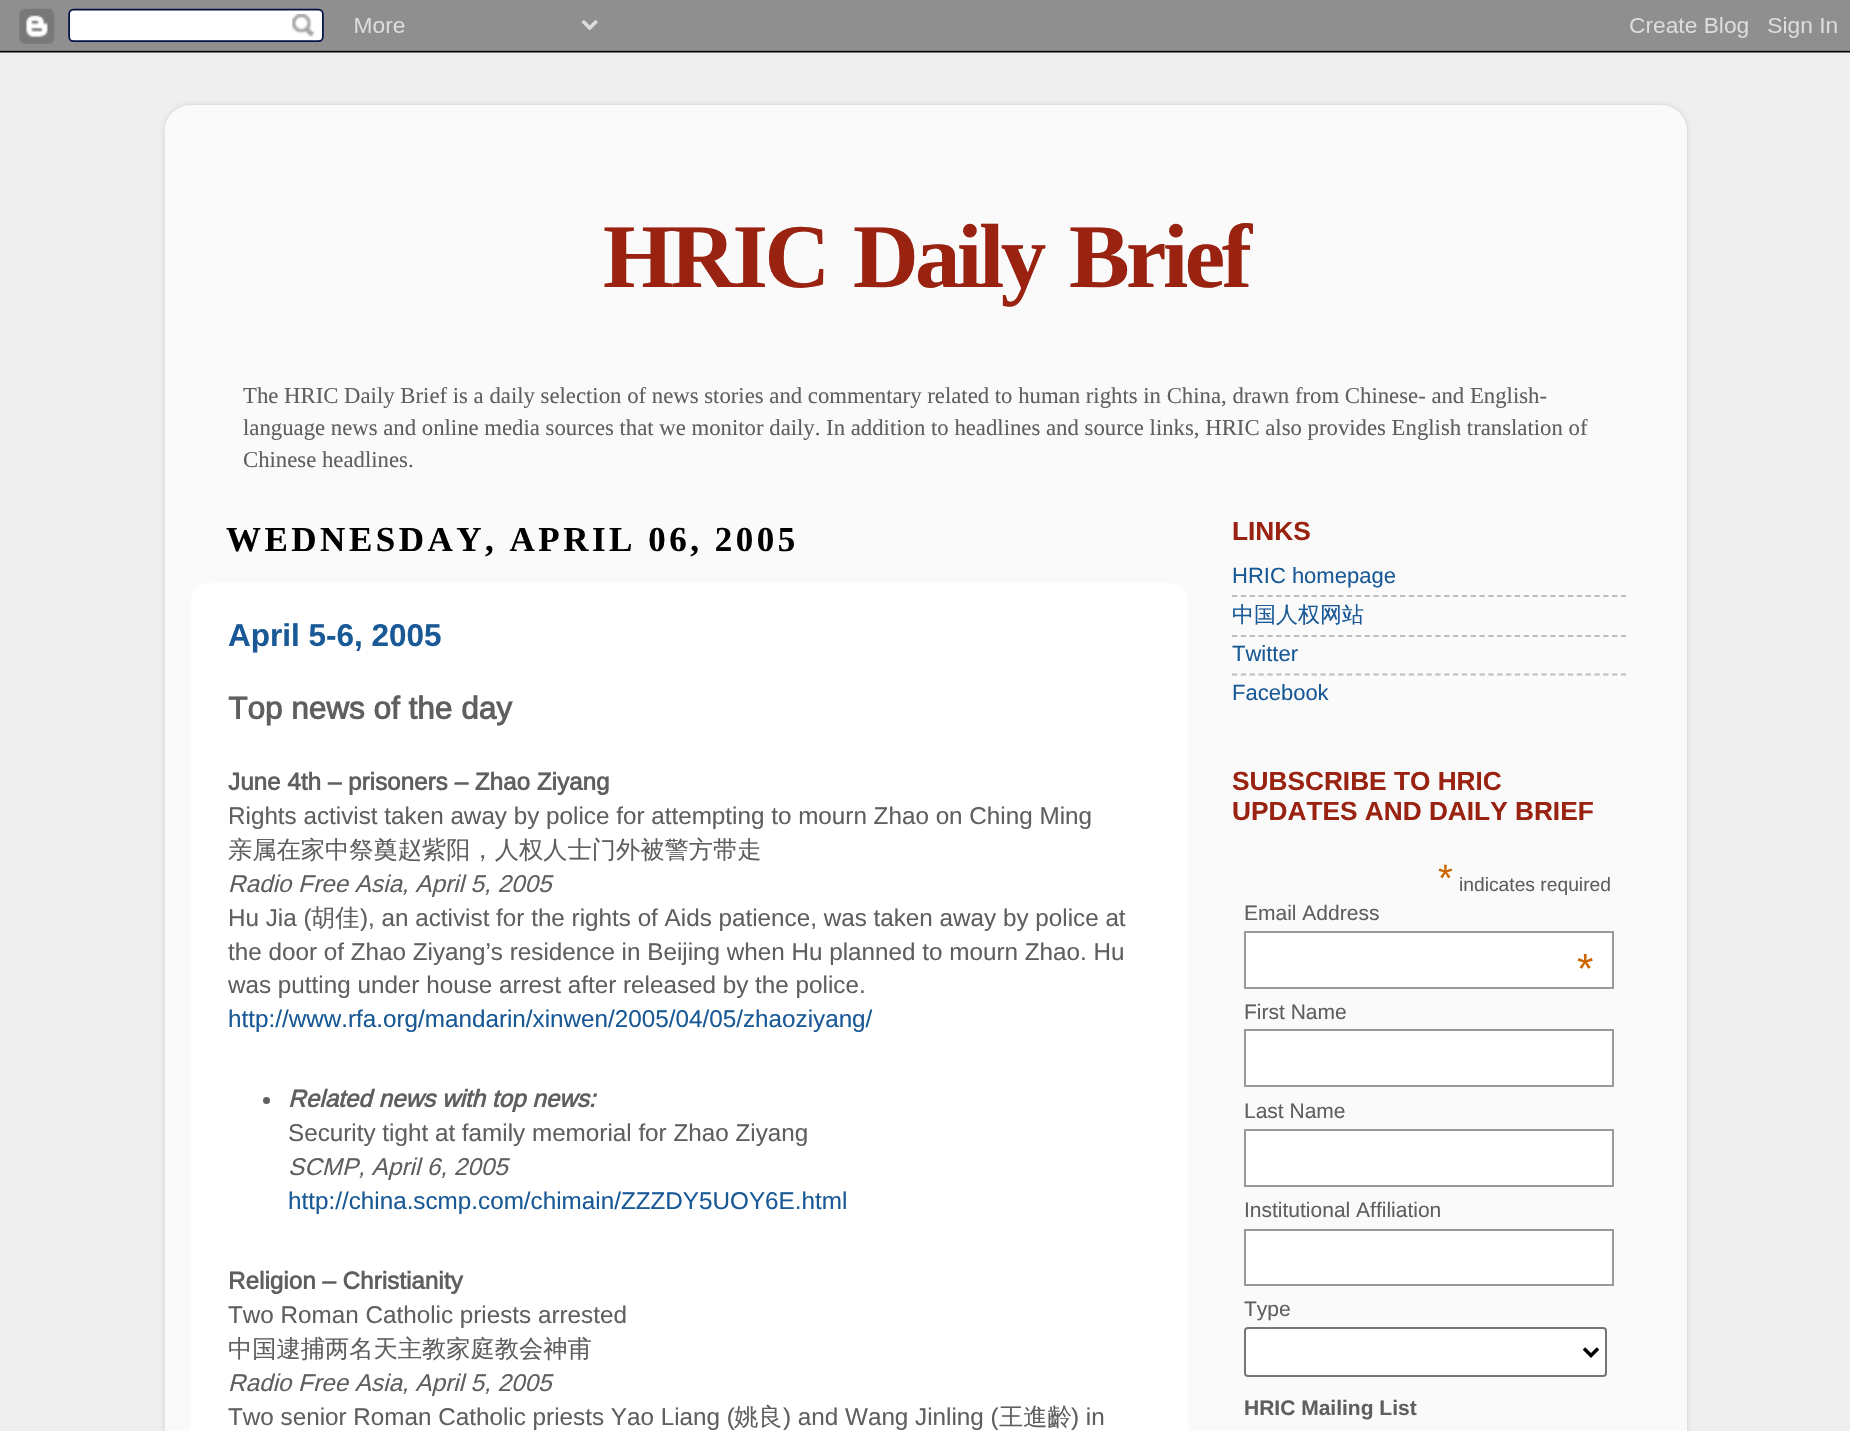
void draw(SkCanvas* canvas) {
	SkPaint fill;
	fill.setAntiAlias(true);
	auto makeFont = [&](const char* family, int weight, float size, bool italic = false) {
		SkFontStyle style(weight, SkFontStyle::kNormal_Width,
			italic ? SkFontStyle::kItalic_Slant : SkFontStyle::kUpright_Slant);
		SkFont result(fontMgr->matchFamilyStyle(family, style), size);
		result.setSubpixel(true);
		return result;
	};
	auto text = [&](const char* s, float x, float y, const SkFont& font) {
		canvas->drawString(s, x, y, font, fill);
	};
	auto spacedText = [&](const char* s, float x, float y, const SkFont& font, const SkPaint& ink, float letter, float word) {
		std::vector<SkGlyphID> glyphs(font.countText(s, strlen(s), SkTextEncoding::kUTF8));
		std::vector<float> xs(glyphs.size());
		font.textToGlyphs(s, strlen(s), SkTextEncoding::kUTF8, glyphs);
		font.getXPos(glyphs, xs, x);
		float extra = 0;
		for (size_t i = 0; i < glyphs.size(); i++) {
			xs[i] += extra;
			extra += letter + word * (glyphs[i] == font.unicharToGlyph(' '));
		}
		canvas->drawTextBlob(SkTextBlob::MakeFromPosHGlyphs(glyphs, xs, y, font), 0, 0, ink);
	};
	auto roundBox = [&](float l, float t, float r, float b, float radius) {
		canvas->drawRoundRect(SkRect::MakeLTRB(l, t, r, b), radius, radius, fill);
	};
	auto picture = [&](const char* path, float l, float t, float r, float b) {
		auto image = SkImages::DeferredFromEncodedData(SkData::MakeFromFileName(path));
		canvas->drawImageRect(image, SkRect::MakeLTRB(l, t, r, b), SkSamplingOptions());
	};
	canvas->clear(0xFFEFEFEF);
	picture("image0.png", 0, 0, 1850, 53);
	canvas->save();
	canvas->clipPath(SkPathBuilder(SkPathFillType::kEvenOdd).moveTo(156, 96).lineTo(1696, 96).lineTo(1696, 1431).lineTo(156, 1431).close().moveTo(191, 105).lineTo(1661, 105).cubicTo(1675.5f, 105, 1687, 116.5f, 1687, 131).lineTo(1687, 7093).cubicTo(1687, 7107.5f, 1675.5f, 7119, 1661, 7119).lineTo(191, 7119).cubicTo(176.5f, 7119, 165, 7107.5f, 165, 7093).lineTo(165, 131).cubicTo(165, 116.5f, 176.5f, 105, 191, 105).close().detach(), true);
	fill.setColor(0x26000000);
	fill.setMaskFilter(SkMaskFilter::MakeBlur(kNormal_SkBlurStyle, 2.5f));
	canvas->drawRoundRect(SkRect::MakeLTRB(165, 105, 1687, 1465), 26, 26, fill);
	fill.setMaskFilter(nullptr);
	canvas->restore();
	picture("image1.png", 164, 105, 1687, 1431);
	fill.setColor(0xFFFFFFFF);
	roundBox(191, 583, 1188, 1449, 18);
	fill.setColor(0xFF5F5F5F);
	canvas->drawCircle(266.5f, 1100.5f, 3.5f, fill);
	fill.setStyle(SkPaint::kStroke_Style);
	fill.setStrokeWidth(1.8f);
	fill.setColor(0xFFBDBDBD);
	fill.setPathEffect(SkDashPathEffect::Make({{5.25f, 3.59f}}, 0));
	canvas->drawPath(SkPathBuilder().moveTo(1232, 596).lineTo(1626, 596).detach(), fill);
	fill.setPathEffect(nullptr);
	fill.setPathEffect(SkDashPathEffect::Make({{5.25f, 3.59f}}, 0));
	canvas->drawPath(SkPathBuilder().moveTo(1232, 636).lineTo(1626, 636).detach(), fill);
	fill.setPathEffect(nullptr);
	fill.setPathEffect(SkDashPathEffect::Make({{5.25f, 3.59f}}, 0));
	canvas->drawPath(SkPathBuilder().moveTo(1232, 674.5f).lineTo(1626, 674.5f).detach(), fill);
	fill.setPathEffect(nullptr);
	fill.setStyle(SkPaint::kFill_Style);
	fill.setColor(0xFFFFFFFF);
	canvas->drawRect(SkRect::MakeLTRB(1245, 932, 1613, 988), fill);
	fill.setStyle(SkPaint::kStroke_Style);
	fill.setStrokeWidth(2);
	fill.setColor(0xFF999999);
	canvas->drawRect(SkRect::MakeLTRB(1245, 932, 1613, 988), fill);
	fill.setStyle(SkPaint::kFill_Style);
	fill.setColor(0xFFFFFFFF);
	canvas->drawRect(SkRect::MakeLTRB(1245, 1030, 1613, 1086), fill);
	fill.setStyle(SkPaint::kStroke_Style);
	fill.setColor(0xFF999999);
	canvas->drawRect(SkRect::MakeLTRB(1245, 1030, 1613, 1086), fill);
	fill.setStyle(SkPaint::kFill_Style);
	fill.setColor(0xFFFFFFFF);
	canvas->drawRect(SkRect::MakeLTRB(1245, 1130, 1613, 1186), fill);
	fill.setStyle(SkPaint::kStroke_Style);
	fill.setColor(0xFF999999);
	canvas->drawRect(SkRect::MakeLTRB(1245, 1130, 1613, 1186), fill);
	fill.setStyle(SkPaint::kFill_Style);
	fill.setColor(0xFFFFFFFF);
	canvas->drawRect(SkRect::MakeLTRB(1245, 1230, 1613, 1285), fill);
	fill.setStyle(SkPaint::kStroke_Style);
	fill.setColor(0xFF999999);
	canvas->drawRect(SkRect::MakeLTRB(1245, 1230, 1613, 1285), fill);
	fill.setStyle(SkPaint::kFill_Style);
	fill.setColor(0xFFFFFFFF);
	canvas->drawRoundRect(SkRect::MakeLTRB(1245, 1328, 1606, 1376), 3, 3, fill);
	fill.setStyle(SkPaint::kStroke_Style);
	fill.setColor(0xFF767676);
	canvas->drawRoundRect(SkRect::MakeLTRB(1245, 1328, 1606, 1376), 3, 3, fill);
	fill.setStrokeWidth(3.5f);
	fill.setColor(0xFF000000);
	canvas->drawPath(SkPathBuilder().moveTo(1584, 1348.5f).lineTo(1591, 1355.5f).lineTo(1598, 1348.5f).detach(), fill);
	auto font1 = makeFont("Liberation Serif", 700, 91);
	fill.setStyle(SkPaint::kFill_Style);
	fill.setColor(0xFF992211);
	spacedText("HRIC Daily Brief", 603, 287, font1, fill, -3.5f, 7);
	auto font2 = makeFont("Liberation Serif", 400, 22.75f);
	fill.setColor(0xFF5F5F5F);
	text("The HRIC Daily Brief is a daily selection of news stories and commentary related to human rights in China, drawn from Chinese- and English-", 243, 403, font2);
	text("language news and online media sources that we monitor daily. In addition to headlines and source links, HRIC also provides English translation of", 243, 435, font2);
	text("Chinese headlines.", 243, 467, font2);
	auto font3 = makeFont("Liberation Serif", 700, 35);
	fill.setColor(0xFF000000);
	spacedText("WEDNESDAY, APRIL 06, 2005", 226, 551, font3, fill, 3.5f, 0);
	auto font4 = makeFont("Liberation Sans", 700, 31.5f);
	fill.setColor(0xFF195996);
	text("April 5-6, 2005", 228, 646, font4);
	auto font5 = makeFont("Arimo", 700, 31.5f);
	fill.setColor(0xFF5F5F5F);
	text("Top news of the day", 228, 719, font5);
	auto font6 = makeFont("Arimo", 700, 24.25f);
	text("June 4th – prisoners – Zhao Ziyang", 228, 790, font6);
	auto font7 = makeFont("Arimo", 400, 24.25f);
	text("Rights activist taken away by police for attempting to mourn Zhao on Ching Ming", 228, 824, font7);
	auto font8 = makeFont("WenQuanYi Zen Hei", 500, 24.25f);
	text("亲属在家中祭奠赵紫阳，人权人士门外被警方带走", 228, 858, font8);
	auto font9 = makeFont("Arimo", 400, 24.25f, true);
	text("Radio Free Asia, April 5, 2005", 228, 892, font9);
	text("Hu Jia (", 228, 926, font7);
	text("胡佳", 311, 926, font8);
	text("), an activist for the rights of Aids patience, was taken away by police at", 360, 926, font7);
	text("the door of Zhao Ziyang’s residence in Beijing when Hu planned to mourn Zhao. Hu", 228, 960, font7);
	text("was putting under house arrest after released by the police.", 228, 993, font7);
	fill.setColor(0xFF195996);
	text("http://www.rfa.org/mandarin/xinwen/2005/04/05/zhaoziyang/", 228, 1027, font7);
	auto font10 = makeFont("Arimo", 700, 24.25f, true);
	fill.setColor(0xFF5F5F5F);
	text("Related news with top news:", 288, 1107, font10);
	text("Security tight at family memorial for Zhao Ziyang", 288, 1141, font7);
	text("SCMP, April 6, 2005", 288, 1175, font9);
	fill.setColor(0xFF195996);
	text("http://china.scmp.com/chimain/ZZZDY5UOY6E.html", 288, 1209, font7);
	fill.setColor(0xFF5F5F5F);
	text("Religion – Christianity", 228, 1289, font6);
	text("Two Roman Catholic priests arrested", 228, 1323, font7);
	text("中国逮捕两名天主教家庭教会神甫", 228, 1357, font8);
	text("Radio Free Asia, April 5, 2005", 228, 1391, font9);
	text("Two senior Roman Catholic priests Yao Liang (", 228, 1425, font7);
	text("姚良", 734, 1425, font8);
	text(") and Wang Jinling (", 783, 1425, font7);
	text("王進齡", 999, 1425, font8);
	text(") in", 1071, 1425, font7);
	auto font11 = makeFont("Liberation Sans", 700, 26.25f);
	fill.setColor(0xFF992211);
	text("LINKS", 1232, 540, font11);
	auto font12 = makeFont("Arimo", 400, 22);
	fill.setColor(0xFF195996);
	text("HRIC homepage", 1232, 583, font12);
	auto font13 = makeFont("WenQuanYi Zen Hei", 500, 22);
	text("中国人权网站", 1232, 622, font13);
	text("Twitter", 1232, 661, font12);
	text("Facebook", 1232, 700, font12);
	fill.setColor(0xFF992211);
	text("SUBSCRIBE TO HRIC", 1232, 790, font11);
	text("UPDATES AND DAILY BRIEF", 1232, 820, font11);
	auto font14 = makeFont("Liberation Sans", 400, 38);
	fill.setColor(0xFFCC6600);
	text("*", 1438, 891, font14);
	auto font15 = makeFont("Liberation Sans", 400, 19.25f);
	fill.setColor(0xFF5F5F5F);
	text("indicates required", 1459, 891, font15);
	auto font16 = makeFont("Liberation Sans", 400, 21);
	text("Email Address", 1244, 920, font16);
	auto font17 = makeFont("Liberation Sans", 400, 42);
	fill.setColor(0xFFCC6600);
	text("*", 1577, 983, font17);
	fill.setColor(0xFF5F5F5F);
	text("First Name", 1244, 1019, font16);
	text("Last Name", 1244, 1118, font16);
	text("Institutional Affiliation", 1244, 1217, font16);
	text("Type", 1244, 1316, font16);
	auto font18 = makeFont("Liberation Sans", 700, 21);
	text("HRIC Mailing List", 1244, 1415, font18);
}
